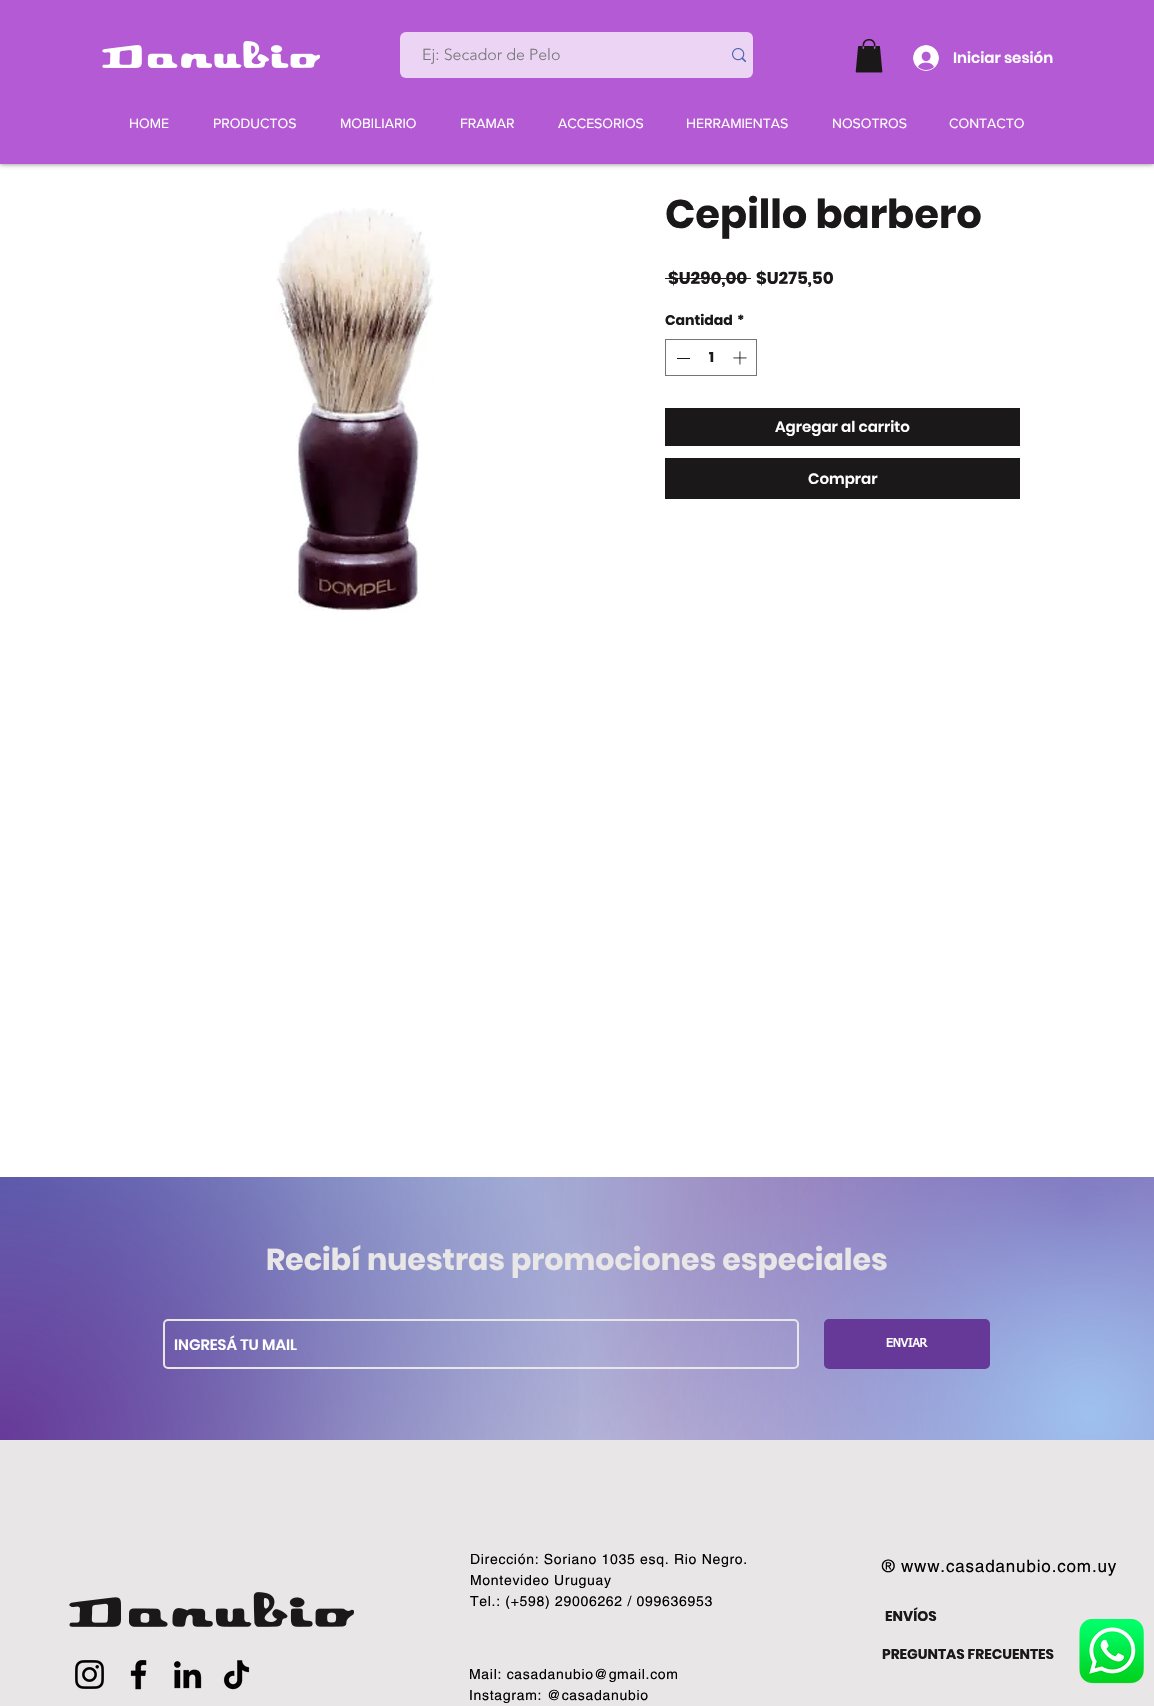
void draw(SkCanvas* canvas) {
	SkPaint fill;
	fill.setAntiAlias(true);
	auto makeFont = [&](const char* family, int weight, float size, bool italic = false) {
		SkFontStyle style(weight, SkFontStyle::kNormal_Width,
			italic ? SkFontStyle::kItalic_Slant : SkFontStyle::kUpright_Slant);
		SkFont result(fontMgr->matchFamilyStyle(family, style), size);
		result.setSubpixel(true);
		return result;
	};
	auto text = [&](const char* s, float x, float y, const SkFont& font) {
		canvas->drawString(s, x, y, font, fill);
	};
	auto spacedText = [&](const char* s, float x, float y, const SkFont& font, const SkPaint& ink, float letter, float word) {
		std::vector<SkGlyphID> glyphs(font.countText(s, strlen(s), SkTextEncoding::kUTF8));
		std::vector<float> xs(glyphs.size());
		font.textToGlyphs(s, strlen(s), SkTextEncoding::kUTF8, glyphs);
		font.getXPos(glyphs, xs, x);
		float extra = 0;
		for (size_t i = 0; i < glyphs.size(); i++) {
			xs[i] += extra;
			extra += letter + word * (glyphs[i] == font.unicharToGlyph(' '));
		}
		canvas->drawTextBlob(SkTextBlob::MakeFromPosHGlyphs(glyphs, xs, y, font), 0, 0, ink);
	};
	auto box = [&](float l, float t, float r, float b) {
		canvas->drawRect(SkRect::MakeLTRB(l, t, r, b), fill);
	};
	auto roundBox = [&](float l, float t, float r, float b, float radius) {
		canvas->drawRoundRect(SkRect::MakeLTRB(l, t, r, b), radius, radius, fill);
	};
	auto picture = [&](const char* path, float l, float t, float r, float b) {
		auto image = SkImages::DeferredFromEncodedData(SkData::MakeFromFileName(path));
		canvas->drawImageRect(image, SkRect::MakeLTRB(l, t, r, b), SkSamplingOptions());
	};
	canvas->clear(0xFFFFFFFF);
	fill.setColor(0x80000000);
	fill.setMaskFilter(SkMaskFilter::MakeBlur(kNormal_SkBlurStyle, 2.5f));
	canvas->drawRect(SkRect::MakeLTRB(0, 0, 1154, 164), fill);
	fill.setMaskFilter(nullptr);
	fill.setColor(0xFFB45AD4);
	box(0, 0, 1154, 164);
	picture("image0.png", 102, 41, 320, 68);
	fill.setColor(0xFFECD4F4);
	roundBox(400, 32, 753, 78, 6);
	picture("image1.png", 732, 48, 746, 62);
	picture("image2.png", 855, 39, 883, 73);
	picture("image3.png", 913, 45, 939, 71);
	picture("image4.png", 276, 208, 434, 612);
	fill.setColor(0xFF1A1818);
	box(665, 278, 751, 279);
	fill.setStyle(SkPaint::kStroke_Style);
	fill.setStrokeWidth(1);
	fill.setColor(0xFF767474);
	canvas->drawRect(SkRect::MakeLTRB(665.5f, 339.5f, 756.5f, 375.5f), fill);
	fill.setStyle(SkPaint::kFill_Style);
	fill.setColor(0xFF1A1818);
	box(677, 358, 690, 359);
	picture("image5.png", 733, 351, 747, 365);
	box(665, 408, 1020, 446);
	box(665, 458, 1020, 499);
	{
		const SkColor colors[] = {0xFFFFFFFF, 0xFFE8E7E7};
		const float stops[] = {0, 1};
		fill.setShader(SkGradientShader::MakeRadial({564, 1307}, 604, colors, stops, 2, SkTileMode::kClamp));
		fill.setAlpha(255);
	}
	box(0, 1177, 1154, 1440);
	{
		const SkColor colors[] = {0xFF663898, 0x00663898};
		const float stops[] = {0, 0.7f};
		fill.setShader(SkGradientShader::MakeRadial({1081, 1207}, 1106, colors, stops, 2, SkTileMode::kClamp));
		fill.setAlpha(255);
	}
	box(322, 1177, 1154, 1440);
	{
		const SkColor colors[] = {0xFF5283C4, 0x005283C4};
		const float stops[] = {0, 0.7f};
		fill.setShader(SkGradientShader::MakeRadial({0, 1177}, 1184, colors, stops, 2, SkTileMode::kClamp));
		fill.setAlpha(255);
	}
	box(0, 1177, 807, 1440);
	{
		const SkColor colors[] = {0xFC663898, 0x00663898};
		const float stops[] = {0, 0.5f};
		fill.setShader(SkGradientShader::MakeRadial({0, 1440}, 1184, colors, stops, 2, SkTileMode::kClamp));
		fill.setAlpha(255);
	}
	box(0, 1177, 579, 1440);
	{
		const SkColor colors[] = {0xFF9EC1EF, 0x009EC1EF};
		const float stops[] = {0, 0.4f};
		fill.setShader(SkGradientShader::MakeRadial({1089, 1413}, 1114, colors, stops, 2, SkTileMode::kClamp));
		fill.setAlpha(255);
	}
	box(669, 1177, 1154, 1440);
	fill.setStyle(SkPaint::kStroke_Style);
	fill.setStrokeWidth(2);
	fill.setShader(nullptr);
	fill.setColor(0xFFE8E6E6);
	canvas->drawRoundRect(SkRect::MakeLTRB(164, 1320, 798, 1368), 4, 4, fill);
	fill.setStyle(SkPaint::kFill_Style);
	fill.setColor(0xFF663898);
	canvas->drawRoundRect(SkRect::MakeLTRB(825, 1320, 989, 1368), 4, 4, fill);
	fill.setStyle(SkPaint::kStroke_Style);
	canvas->drawRoundRect(SkRect::MakeLTRB(825, 1320, 989, 1368), 4, 4, fill);
	fill.setStyle(SkPaint::kFill_Style);
	fill.setColor(0xFFE8E6E6);
	box(0, 1440, 1154, 1706);
	picture("image6.png", 69, 1592, 354, 1627);
	picture("image7.png", 75, 1660, 104, 1689);
	picture("image8.png", 130, 1660, 147, 1690);
	picture("image9.png", 173, 1661, 202, 1689);
	picture("image10.png", 223, 1660, 250, 1690);
	picture("image11.png", 1079, 1619, 1144, 1684);
	auto font1 = makeFont("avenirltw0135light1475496", 300, 16);
	fill.setColor(0xFF787878);
	text("Ej: Secador de Pelo", 422, 60, font1);
	auto font2 = makeFont("Poppins", 600, 15);
	fill.setColor(0xFFFFFFFF);
	text("Iniciar sesión", 953, 63, font2);
	auto font3 = makeFont("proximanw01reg", 400, 14);
	text("HOME", 129, 128, font3);
	text("PRODUCTOS", 213, 128, font3);
	text("MOBILIARIO", 340, 128, font3);
	text("FRAMAR", 460, 128, font3);
	text("ACCESORIOS", 558, 128, font3);
	text("HERRAMIENTAS", 686, 128, font3);
	text("NOSOTROS", 832, 128, font3);
	text("CONTACTO", 949, 128, font3);
	auto font4 = makeFont("Poppins", 700, 40);
	fill.setColor(0xFF1A1818);
	text("Cepillo barbero", 665, 228, font4);
	auto font5 = makeFont("Poppins", 700, 17);
	text("$U290,00", 668, 284, font5);
	text("$U275,50", 756, 284, font5);
	auto font6 = makeFont("Poppins", 700, 14);
	text("Cantidad", 665, 325, font6);
	text("*", 737, 325, font6);
	text("1", 709, 362, font6);
	fill.setColor(0xFFFFFFFF);
	text("Agregar al carrito", 775, 432, font2);
	text("Comprar", 808, 484, font2);
	auto font7 = makeFont("Poppins", 700, 30);
	fill.setColor(0xFFE8E6E6);
	text("Recibí nuestras promociones especiales", 266, 1270, font7);
	fill.setColor(0xFFFFFFFF);
	text("INGRESÁ TU MAIL", 174, 1350, font2);
	auto font8 = makeFont("tahoma", 700, 12);
	text("ENVIAR", 886, 1347, font8);
	auto font9 = makeFont("helvetica", 400, 14);
	fill.setColor(0xFF000000);
	spacedText("Dirección: Soriano 1035 esq. Rio Negro.", 470, 1564, font9, fill, 0.7f, 0);
	spacedText("Montevideo Uruguay", 470, 1585, font9, fill, 0.7f, 0);
	spacedText("Tel.: (+598) 29006262 / 099636953", 470, 1606, font9, fill, 0.7f, 0);
	spacedText("Mail: casadanubio@gmail.com", 469, 1679, font9, fill, 0.7f, 0);
	spacedText("Instagram: @casadanubio", 469, 1700, font9, fill, 0.7f, 0);
	auto font10 = makeFont("helvetica", 400, 17);
	spacedText("® www.casadanubio.com.uy", 882, 1572, font10, fill, 0.85f, 0);
	fill.setColor(0xFF1A1818);
	text("ENVÍOS", 885, 1621, font6);
	text("PREGUNTAS FRECUENTES", 882, 1659, font6);
}
